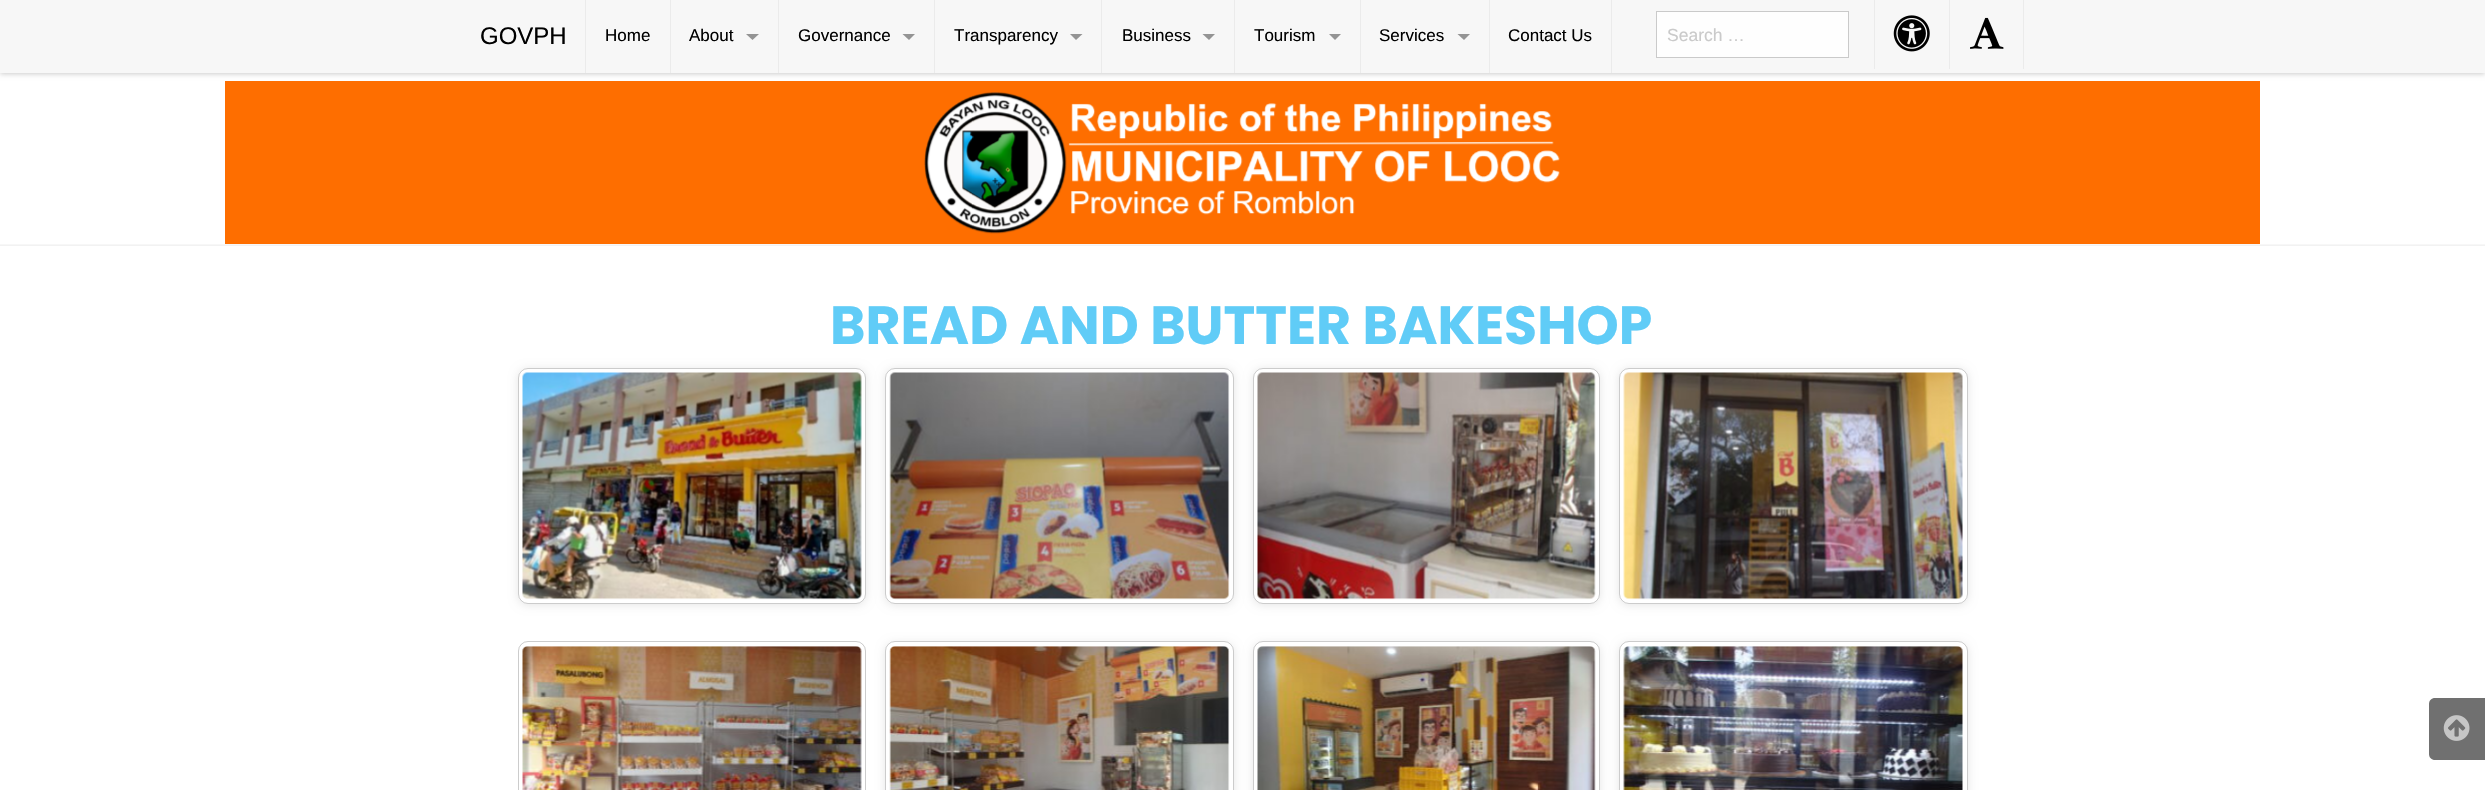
void draw(SkCanvas* canvas) {
	SkPaint fill;
	fill.setAntiAlias(true);
	auto makeFont = [&](const char* family, int weight, float size, bool italic = false) {
		SkFontStyle style(weight, SkFontStyle::kNormal_Width,
			italic ? SkFontStyle::kItalic_Slant : SkFontStyle::kUpright_Slant);
		SkFont result(fontMgr->matchFamilyStyle(family, style), size);
		result.setSubpixel(true);
		return result;
	};
	auto text = [&](const char* s, float x, float y, const SkFont& font) {
		canvas->drawString(s, x, y, font, fill);
	};
	auto box = [&](float l, float t, float r, float b) {
		canvas->drawRect(SkRect::MakeLTRB(l, t, r, b), fill);
	};
	auto picture = [&](const char* path, float l, float t, float r, float b) {
		auto image = SkImages::DeferredFromEncodedData(SkData::MakeFromFileName(path));
		canvas->drawImageRect(image, SkRect::MakeLTRB(l, t, r, b), SkSamplingOptions());
	};
	canvas->clear(0xFFFFFFFF);
	fill.setColor(0xFFFE6E00);
	box(225, 81, 2260, 244);
	fill.setColor(0x33000000);
	fill.setMaskFilter(SkMaskFilter::MakeBlur(kNormal_SkBlurStyle, 2.5f));
	canvas->drawRect(SkRect::MakeLTRB(0, 1, 2485, 74), fill);
	fill.setMaskFilter(nullptr);
	fill.setColor(0xFFF7F7F7);
	box(0, 0, 2485, 73);
	fill.setColor(0xFFEBEBEB);
	box(585, 0, 586, 73);
	box(670, 0, 671, 73);
	box(778, 0, 779, 73);
	fill.setColor(0xFF949494);
	canvas->drawPath(SkPathBuilder().moveTo(746, 34).lineTo(759, 34).lineTo(752.5f, 40).close().detach(), fill);
	fill.setColor(0xFFEBEBEB);
	box(934, 0, 935, 73);
	fill.setColor(0xFF949494);
	canvas->drawPath(SkPathBuilder().moveTo(902.5f, 34).lineTo(915, 34).lineTo(909, 40).close().detach(), fill);
	fill.setColor(0xFFEBEBEB);
	box(1101, 0, 1102, 73);
	fill.setColor(0xFF949494);
	canvas->drawPath(SkPathBuilder().moveTo(1070, 34).lineTo(1082.5f, 34).lineTo(1076, 40).close().detach(), fill);
	fill.setColor(0xFFEBEBEB);
	box(1234, 0, 1235, 73);
	fill.setColor(0xFF949494);
	canvas->drawPath(SkPathBuilder().moveTo(1202.5f, 34).lineTo(1215, 34).lineTo(1209, 40).close().detach(), fill);
	fill.setColor(0xFFEBEBEB);
	box(1360, 0, 1361, 73);
	fill.setColor(0xFF949494);
	canvas->drawPath(SkPathBuilder().moveTo(1329, 34).lineTo(1341, 34).lineTo(1335, 40).close().detach(), fill);
	fill.setColor(0xFFEBEBEB);
	box(1489, 0, 1490, 73);
	fill.setColor(0xFF949494);
	canvas->drawPath(SkPathBuilder().moveTo(1457.5f, 34).lineTo(1470, 34).lineTo(1464, 40).close().detach(), fill);
	fill.setColor(0xFFEBEBEB);
	box(1611, 0, 1612, 73);
	box(1874, 0, 1875, 69);
	fill.setColor(0xFFFEFEFE);
	canvas->drawRect(SkRect::MakeLTRB(1656.5f, 11.5f, 1848.5f, 57.5f), fill);
	fill.setStyle(SkPaint::kStroke_Style);
	fill.setStrokeWidth(1);
	fill.setColor(0xFFCACACA);
	canvas->drawRect(SkRect::MakeLTRB(1656.5f, 11.5f, 1848.5f, 57.5f), fill);
	fill.setStyle(SkPaint::kFill_Style);
	fill.setColor(0xFFEBEBEB);
	box(1949, 0, 1950, 69);
	picture("image0.png", 1893, 15, 1930, 52);
	box(2023, 0, 2024, 69);
	picture("image1.png", 1970, 17, 2004, 49);
	picture("image2.png", 924, 92, 1560, 234);
	fill.setColor(0xFFF7F7F7);
	box(0, 244, 2485, 245);
	fill.setColor(0xFFF2F2F2);
	box(0, 245, 2485, 246);
	canvas->save();
	canvas->clipPath(SkPathBuilder(SkPathFillType::kEvenOdd).moveTo(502, 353).lineTo(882, 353).lineTo(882, 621).lineTo(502, 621).close().moveTo(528, 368).lineTo(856, 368).cubicTo(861.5f, 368, 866, 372.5f, 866, 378).lineTo(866, 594).cubicTo(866, 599.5f, 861.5f, 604, 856, 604).lineTo(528, 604).cubicTo(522.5f, 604, 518, 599.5f, 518, 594).lineTo(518, 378).cubicTo(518, 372.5f, 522.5f, 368, 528, 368).close().detach(), true);
	fill.setColor(0x1A000000);
	fill.setMaskFilter(SkMaskFilter::MakeBlur(kNormal_SkBlurStyle, 5));
	canvas->drawRoundRect(SkRect::MakeLTRB(518, 369, 866, 605), 10, 10, fill);
	fill.setMaskFilter(nullptr);
	canvas->restore();
	fill.setStyle(SkPaint::kStroke_Style);
	fill.setColor(0x33000000);
	canvas->drawRoundRect(SkRect::MakeLTRB(518.5f, 368.5f, 865.5f, 603.5f), 9.5f, 9.5f, fill);
	picture("image3.png", 522, 372, 862, 600);
	canvas->save();
	canvas->clipPath(SkPathBuilder(SkPathFillType::kEvenOdd).moveTo(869, 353).lineTo(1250, 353).lineTo(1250, 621).lineTo(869, 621).close().moveTo(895, 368).lineTo(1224, 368).cubicTo(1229.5f, 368, 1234, 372.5f, 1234, 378).lineTo(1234, 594).cubicTo(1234, 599.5f, 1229.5f, 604, 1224, 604).lineTo(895, 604).cubicTo(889.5f, 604, 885, 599.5f, 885, 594).lineTo(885, 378).cubicTo(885, 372.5f, 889.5f, 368, 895, 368).close().detach(), true);
	fill.setStyle(SkPaint::kFill_Style);
	fill.setColor(0x1A000000);
	fill.setMaskFilter(SkMaskFilter::MakeBlur(kNormal_SkBlurStyle, 5));
	canvas->drawRoundRect(SkRect::MakeLTRB(885, 369, 1234, 605), 10, 10, fill);
	fill.setMaskFilter(nullptr);
	canvas->restore();
	fill.setStyle(SkPaint::kStroke_Style);
	fill.setColor(0x33000000);
	canvas->drawRoundRect(SkRect::MakeLTRB(885.5f, 368.5f, 1233.5f, 603.5f), 9.5f, 9.5f, fill);
	picture("image4.png", 889, 372, 1230, 600);
	canvas->save();
	canvas->clipPath(SkPathBuilder(SkPathFillType::kEvenOdd).moveTo(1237, 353).lineTo(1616, 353).lineTo(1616, 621).lineTo(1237, 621).close().moveTo(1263, 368).lineTo(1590, 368).cubicTo(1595.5f, 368, 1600, 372.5f, 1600, 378).lineTo(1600, 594).cubicTo(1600, 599.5f, 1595.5f, 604, 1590, 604).lineTo(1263, 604).cubicTo(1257.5f, 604, 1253, 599.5f, 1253, 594).lineTo(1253, 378).cubicTo(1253, 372.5f, 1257.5f, 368, 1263, 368).close().detach(), true);
	fill.setStyle(SkPaint::kFill_Style);
	fill.setColor(0x1A000000);
	fill.setMaskFilter(SkMaskFilter::MakeBlur(kNormal_SkBlurStyle, 5));
	canvas->drawRoundRect(SkRect::MakeLTRB(1253, 369, 1600, 605), 10, 10, fill);
	fill.setMaskFilter(nullptr);
	canvas->restore();
	fill.setStyle(SkPaint::kStroke_Style);
	fill.setColor(0x33000000);
	canvas->drawRoundRect(SkRect::MakeLTRB(1253.5f, 368.5f, 1599.5f, 603.5f), 9.5f, 9.5f, fill);
	picture("image5.png", 1257, 372, 1596, 600);
	canvas->save();
	canvas->clipPath(SkPathBuilder(SkPathFillType::kEvenOdd).moveTo(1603, 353).lineTo(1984, 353).lineTo(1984, 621).lineTo(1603, 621).close().moveTo(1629, 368).lineTo(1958, 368).cubicTo(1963.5f, 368, 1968, 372.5f, 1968, 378).lineTo(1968, 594).cubicTo(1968, 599.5f, 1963.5f, 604, 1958, 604).lineTo(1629, 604).cubicTo(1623.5f, 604, 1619, 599.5f, 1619, 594).lineTo(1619, 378).cubicTo(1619, 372.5f, 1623.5f, 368, 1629, 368).close().detach(), true);
	fill.setStyle(SkPaint::kFill_Style);
	fill.setColor(0x1A000000);
	fill.setMaskFilter(SkMaskFilter::MakeBlur(kNormal_SkBlurStyle, 5));
	canvas->drawRoundRect(SkRect::MakeLTRB(1619, 369, 1968, 605), 10, 10, fill);
	fill.setMaskFilter(nullptr);
	canvas->restore();
	fill.setStyle(SkPaint::kStroke_Style);
	fill.setColor(0x33000000);
	canvas->drawRoundRect(SkRect::MakeLTRB(1619.5f, 368.5f, 1967.5f, 603.5f), 9.5f, 9.5f, fill);
	picture("image6.png", 1623, 372, 1963, 600);
	canvas->drawRoundRect(SkRect::MakeLTRB(518.5f, 641.5f, 865.5f, 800.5f), 9.5f, 9.5f, fill);
	picture("image7.png", 522, 646, 862, 790);
	canvas->save();
	canvas->clipPath(SkPathBuilder(SkPathFillType::kEvenOdd).moveTo(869, 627).lineTo(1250, 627).lineTo(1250, 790).lineTo(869, 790).close().moveTo(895, 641).lineTo(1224, 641).cubicTo(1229.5f, 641, 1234, 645.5f, 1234, 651).lineTo(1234, 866).cubicTo(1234, 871.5f, 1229.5f, 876, 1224, 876).lineTo(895, 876).cubicTo(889.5f, 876, 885, 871.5f, 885, 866).lineTo(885, 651).cubicTo(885, 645.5f, 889.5f, 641, 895, 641).close().detach(), true);
	fill.setStyle(SkPaint::kFill_Style);
	fill.setColor(0x1A000000);
	fill.setMaskFilter(SkMaskFilter::MakeBlur(kNormal_SkBlurStyle, 5));
	canvas->drawRoundRect(SkRect::MakeLTRB(885, 643, 1234, 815), 10, 10, fill);
	fill.setMaskFilter(nullptr);
	canvas->restore();
	fill.setStyle(SkPaint::kStroke_Style);
	fill.setColor(0x33000000);
	canvas->drawRoundRect(SkRect::MakeLTRB(885.5f, 641.5f, 1233.5f, 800.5f), 9.5f, 9.5f, fill);
	picture("image8.png", 889, 646, 1230, 790);
	canvas->save();
	canvas->clipPath(SkPathBuilder(SkPathFillType::kEvenOdd).moveTo(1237, 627).lineTo(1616, 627).lineTo(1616, 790).lineTo(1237, 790).close().moveTo(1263, 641).lineTo(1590, 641).cubicTo(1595.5f, 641, 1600, 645.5f, 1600, 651).lineTo(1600, 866).cubicTo(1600, 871.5f, 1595.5f, 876, 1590, 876).lineTo(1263, 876).cubicTo(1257.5f, 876, 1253, 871.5f, 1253, 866).lineTo(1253, 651).cubicTo(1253, 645.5f, 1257.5f, 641, 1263, 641).close().detach(), true);
	fill.setStyle(SkPaint::kFill_Style);
	fill.setColor(0x1A000000);
	fill.setMaskFilter(SkMaskFilter::MakeBlur(kNormal_SkBlurStyle, 5));
	canvas->drawRoundRect(SkRect::MakeLTRB(1253, 643, 1600, 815), 10, 10, fill);
	fill.setMaskFilter(nullptr);
	canvas->restore();
	fill.setStyle(SkPaint::kStroke_Style);
	fill.setColor(0x33000000);
	canvas->drawRoundRect(SkRect::MakeLTRB(1253.5f, 641.5f, 1599.5f, 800.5f), 9.5f, 9.5f, fill);
	picture("image9.png", 1257, 646, 1596, 790);
	canvas->save();
	canvas->clipPath(SkPathBuilder(SkPathFillType::kEvenOdd).moveTo(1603, 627).lineTo(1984, 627).lineTo(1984, 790).lineTo(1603, 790).close().moveTo(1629, 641).lineTo(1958, 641).cubicTo(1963.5f, 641, 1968, 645.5f, 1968, 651).lineTo(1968, 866).cubicTo(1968, 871.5f, 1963.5f, 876, 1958, 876).lineTo(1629, 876).cubicTo(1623.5f, 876, 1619, 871.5f, 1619, 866).lineTo(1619, 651).cubicTo(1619, 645.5f, 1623.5f, 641, 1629, 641).close().detach(), true);
	fill.setStyle(SkPaint::kFill_Style);
	fill.setColor(0x1A000000);
	fill.setMaskFilter(SkMaskFilter::MakeBlur(kNormal_SkBlurStyle, 5));
	canvas->drawRoundRect(SkRect::MakeLTRB(1619, 643, 1968, 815), 10, 10, fill);
	fill.setMaskFilter(nullptr);
	canvas->restore();
	fill.setStyle(SkPaint::kStroke_Style);
	fill.setColor(0x33000000);
	canvas->drawRoundRect(SkRect::MakeLTRB(1619.5f, 641.5f, 1967.5f, 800.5f), 9.5f, 9.5f, fill);
	picture("image10.png", 1623, 646, 1963, 790);
	fill.setStyle(SkPaint::kFill_Style);
	fill.setColor(0xFF707070);
	canvas->drawPath(SkPathBuilder().moveTo(2435, 698).lineTo(2485, 698).lineTo(2485, 760).lineTo(2435, 760).cubicTo(2431.5f, 760, 2429, 757.5f, 2429, 754).lineTo(2429, 704).cubicTo(2429, 700.5f, 2431.5f, 698, 2435, 698).close().detach(), fill);
	picture("image11.png", 2443, 715, 2470, 741);
	auto font1 = makeFont("Liberation Sans", 400, 24);
	fill.setColor(0xFF000000);
	text("GOVPH", 480, 44, font1);
	auto font2 = makeFont("Liberation Sans", 400, 17);
	text("Home", 605, 41, font2);
	text("About", 689, 41, font2);
	text("Governance", 798, 41, font2);
	text("Transparency", 954, 41, font2);
	text("Business", 1122, 41, font2);
	text("Tourism", 1254, 41, font2);
	text("Services", 1379, 41, font2);
	text("Contact Us", 1508, 41, font2);
	auto font3 = makeFont("Liberation Sans", 400, 17.5f);
	fill.setColor(0xFFCACACA);
	text("Search …", 1667, 41, font3);
	auto font4 = makeFont("Poppins", 700, 53.75f);
	fill.setColor(0xFF60CCF7);
	text("BREAD AND BUTTER BAKESHOP", 830, 344, font4);
}
